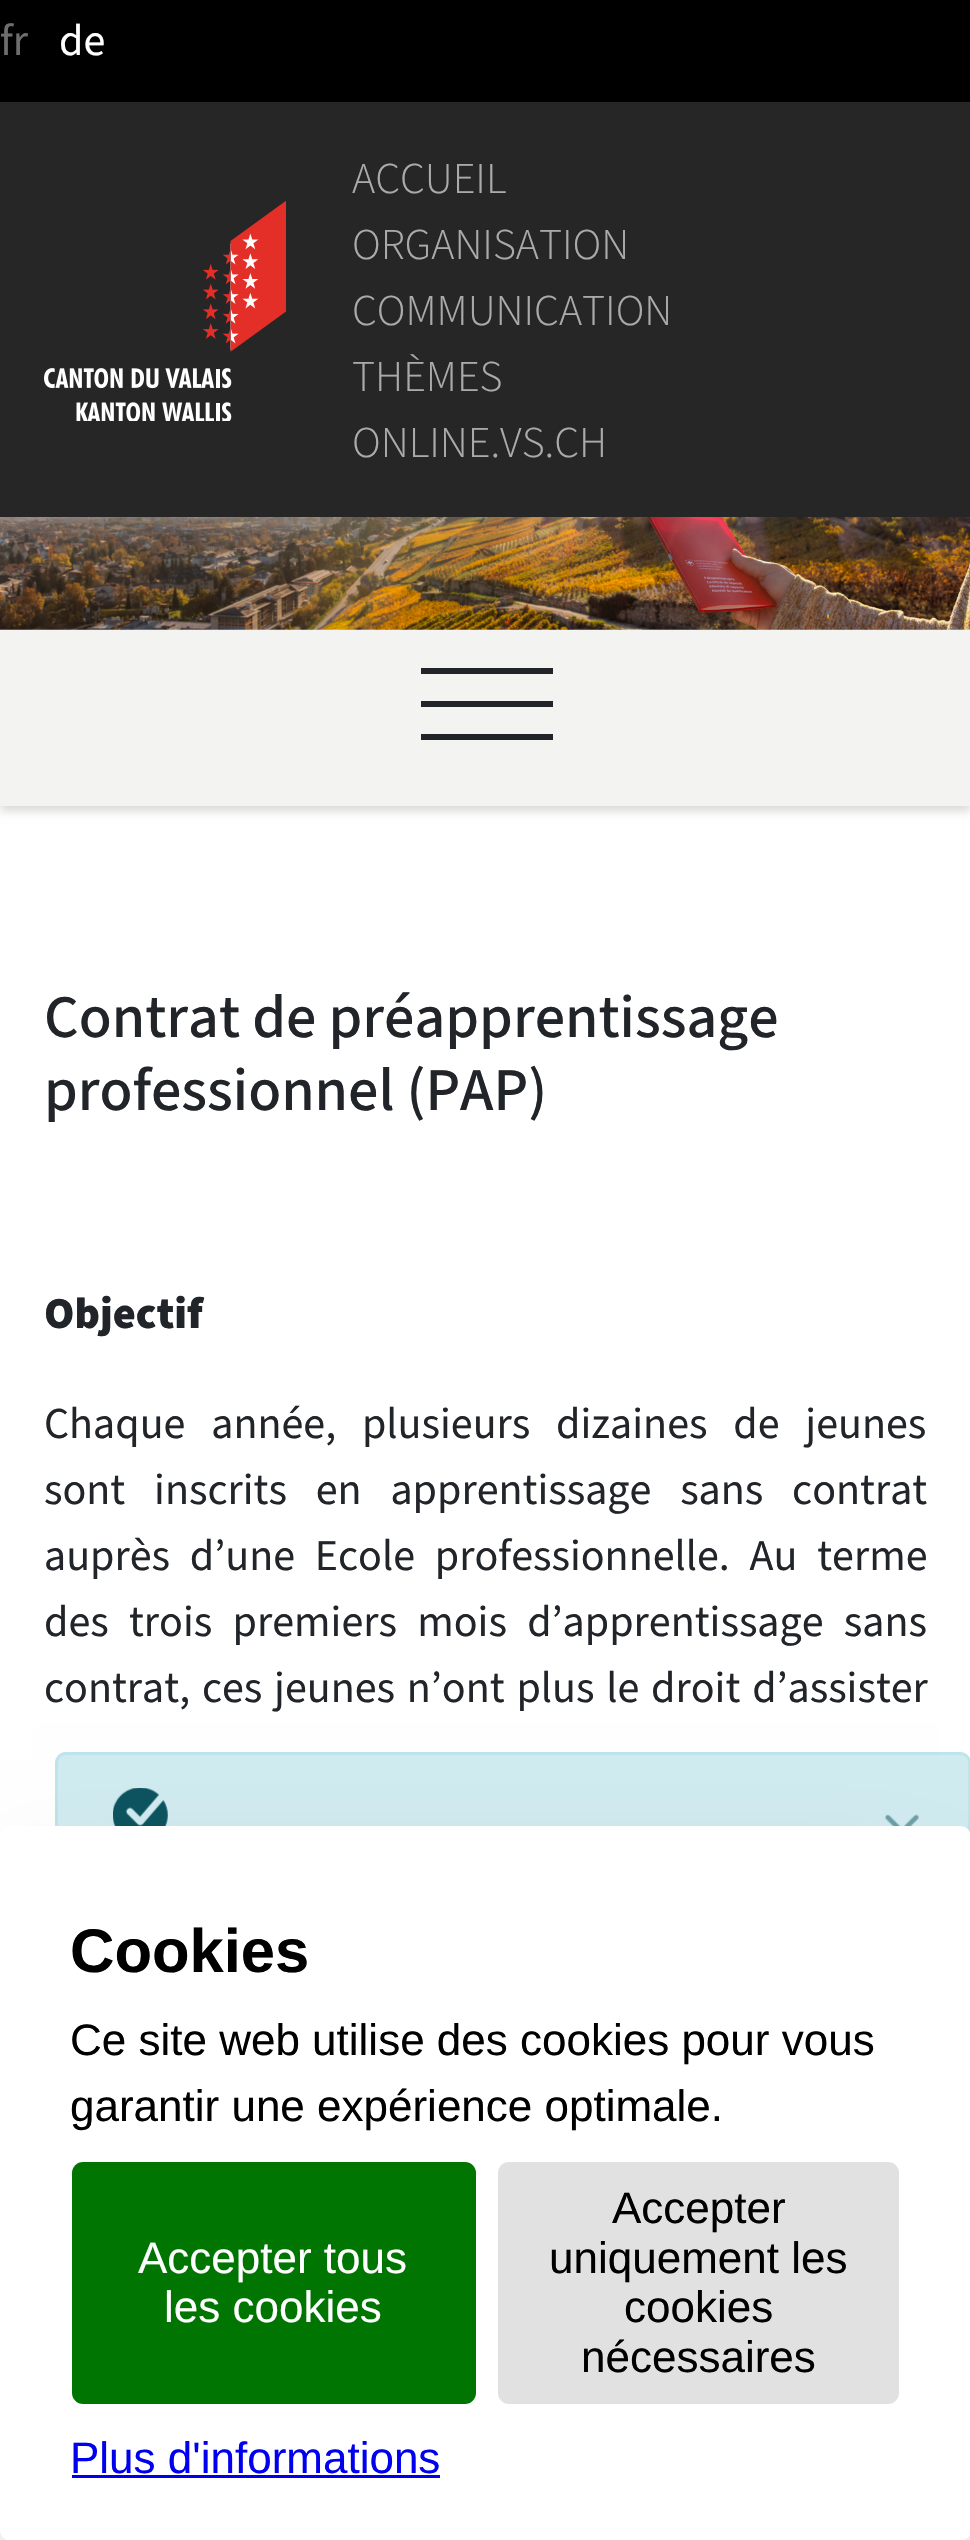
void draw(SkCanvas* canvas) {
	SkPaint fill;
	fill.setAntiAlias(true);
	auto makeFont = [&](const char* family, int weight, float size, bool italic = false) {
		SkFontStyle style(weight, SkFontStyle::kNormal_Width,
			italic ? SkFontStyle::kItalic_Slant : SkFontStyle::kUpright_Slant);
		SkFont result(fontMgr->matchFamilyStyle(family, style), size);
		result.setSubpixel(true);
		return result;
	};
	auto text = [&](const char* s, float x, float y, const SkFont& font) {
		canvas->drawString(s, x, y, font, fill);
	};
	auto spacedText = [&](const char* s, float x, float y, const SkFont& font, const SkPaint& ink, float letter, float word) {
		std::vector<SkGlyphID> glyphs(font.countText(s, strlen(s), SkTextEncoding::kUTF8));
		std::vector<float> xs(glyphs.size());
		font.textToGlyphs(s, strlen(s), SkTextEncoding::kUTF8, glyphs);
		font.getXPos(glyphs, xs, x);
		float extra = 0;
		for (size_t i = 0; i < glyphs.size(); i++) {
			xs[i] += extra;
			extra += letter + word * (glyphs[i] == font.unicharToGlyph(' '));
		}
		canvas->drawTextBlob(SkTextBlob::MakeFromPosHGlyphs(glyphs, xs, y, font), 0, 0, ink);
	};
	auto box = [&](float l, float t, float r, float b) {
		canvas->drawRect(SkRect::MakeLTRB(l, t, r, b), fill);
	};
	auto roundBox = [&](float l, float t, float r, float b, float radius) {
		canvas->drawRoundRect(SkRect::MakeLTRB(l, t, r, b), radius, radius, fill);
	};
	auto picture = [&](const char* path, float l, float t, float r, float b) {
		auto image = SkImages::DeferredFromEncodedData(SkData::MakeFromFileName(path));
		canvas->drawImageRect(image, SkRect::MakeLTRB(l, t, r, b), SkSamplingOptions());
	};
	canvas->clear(0xFFFFFFFF);
	fill.setColor(0xFF000000);
	box(0, 0, 970, 102);
	fill.setColor(0xFF262626);
	box(0, 102, 970, 517);
	picture("image0.png", 44, 201, 286, 421);
	fill.setColor(0x26000000);
	fill.setMaskFilter(SkMaskFilter::MakeBlur(kNormal_SkBlurStyle, 4.5f));
	canvas->drawRect(SkRect::MakeLTRB(0, 635, 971, 811), fill);
	fill.setMaskFilter(nullptr);
	picture("image1.png", 0, 517, 970, 630);
	fill.setColor(0xFFF3F3F2);
	box(0, 630, 970, 806);
	fill.setColor(0xFF212529);
	box(421, 668, 553, 674);
	box(421, 701, 553, 707);
	box(421, 734, 553, 740);
	fill.setColor(0xFFD1ECF1);
	canvas->drawRoundRect(SkRect::MakeLTRB(56.5f, 1753.5f, 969.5f, 2440.5f), 9.5f, 9.5f, fill);
	fill.setStyle(SkPaint::kStroke_Style);
	fill.setStrokeWidth(3);
	fill.setColor(0xFFBEE5EB);
	canvas->drawRoundRect(SkRect::MakeLTRB(56.5f, 1753.5f, 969.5f, 2440.5f), 9.5f, 9.5f, fill);
	picture("image2.png", 113, 1788, 168, 1826);
	picture("image3.png", 884, 1814, 919, 1826);
	fill.setStyle(SkPaint::kFill_Style);
	fill.setColor(0x40000000);
	fill.setMaskFilter(SkMaskFilter::MakeBlur(kNormal_SkBlurStyle, 69));
	canvas->drawRect(SkRect::MakeLTRB(33, 1928, 938, 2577), fill);
	fill.setMaskFilter(nullptr);
	fill.setColor(0xFFFFFFFF);
	roundBox(0, 1826, 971, 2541, 11);
	fill.setColor(0xFF007502);
	roundBox(72, 2162, 476, 2404, 11);
	fill.setColor(0xFFE1E1E1);
	roundBox(498, 2162, 899, 2404, 11);
	fill.setColor(0xFF0000EE);
	box(72, 2475, 440, 2478);
	auto font1 = makeFont("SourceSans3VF", 400, 44);
	fill.setColor(0xFF6E6E6E);
	text("fr", 0, 55, font1);
	fill.setColor(0xFFFFFFFF);
	text("de", 59, 55, font1);
	auto font2 = makeFont("SourceSans3VF", 300, 44);
	fill.setColor(0xFFAAAAAA);
	text("ACCUEIL", 352, 193, font2);
	text("ORGANISATION", 352, 259, font2);
	text("COMMUNICATION", 352, 325, font2);
	text("THÈMES", 352, 391, font2);
	text("ONLINE.VS.CH", 352, 457, font2);
	auto font3 = makeFont("SourceSans3VF", 500, 60.5f);
	fill.setColor(0xFF212529);
	text("Contrat de préapprentissage", 44, 1037, font3);
	text("professionnel (PAP)", 44, 1110, font3);
	auto font4 = makeFont("SourceSans3VF", 900, 44);
	text("Objectif", 44, 1328, font4);
	spacedText("Chaque année, plusieurs dizaines de jeunes", 44, 1438, font1, fill, 0, 17);
	spacedText("sont inscrits en apprentissage sans contrat", 44, 1504, font1, fill, 0, 20);
	spacedText("auprès d’une Ecole professionnelle. Au terme", 44, 1570, font1, fill, 0, 11);
	spacedText("des trois premiers mois d’apprentissage sans", 44, 1636, font1, fill, 0, 11.5f);
	spacedText("contrat, ces jeunes n’ont plus le droit d’assister", 44, 1702, font1, fill, 0, 3);
	auto font5 = makeFont("Liberation Sans", 700, 61.5f);
	fill.setColor(0xFF000000);
	text("Cookies", 70, 1972, font5);
	auto font6 = makeFont("Liberation Sans", 400, 44);
	text("Ce site web utilise des cookies pour vous", 70, 2055, font6);
	text("garantir une expérience optimale.", 70, 2121, font6);
	fill.setColor(0xFFFFFFFF);
	text("Accepter tous", 138, 2273, font6);
	text("les cookies", 164, 2322, font6);
	fill.setColor(0xFF000000);
	text("Accepter", 612, 2223, font6);
	text("uniquement les", 549, 2273, font6);
	text("cookies", 624, 2322, font6);
	text("nécessaires", 581, 2372, font6);
	fill.setColor(0xFF0000EE);
	text("Plus d'informations", 70, 2473, font6);
}
